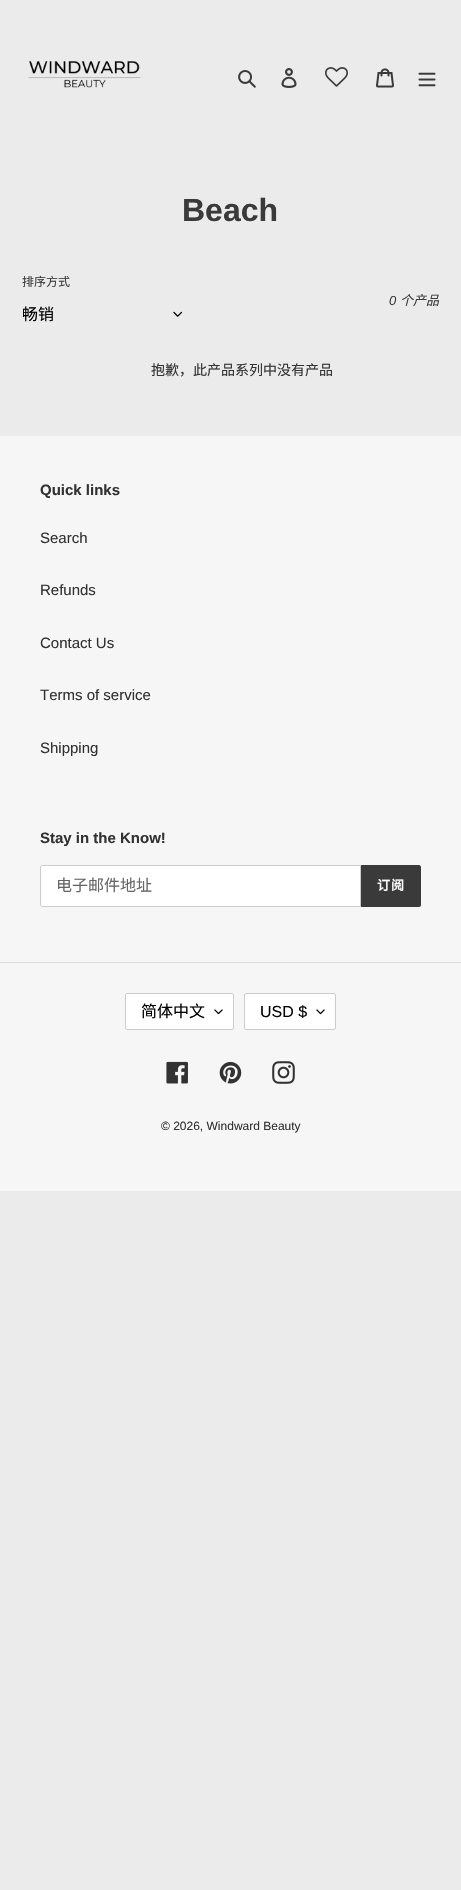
void draw(SkCanvas* canvas) {
	SkPaint fill;
	fill.setAntiAlias(true);
	auto makeFont = [&](const char* family, int weight, float size, bool italic = false) {
		SkFontStyle style(weight, SkFontStyle::kNormal_Width,
			italic ? SkFontStyle::kItalic_Slant : SkFontStyle::kUpright_Slant);
		SkFont result(fontMgr->matchFamilyStyle(family, style), size);
		result.setSubpixel(true);
		return result;
	};
	auto text = [&](const char* s, float x, float y, const SkFont& font) {
		canvas->drawString(s, x, y, font, fill);
	};
	auto spacedText = [&](const char* s, float x, float y, const SkFont& font, const SkPaint& ink, float letter, float word) {
		std::vector<SkGlyphID> glyphs(font.countText(s, strlen(s), SkTextEncoding::kUTF8));
		std::vector<float> xs(glyphs.size());
		font.textToGlyphs(s, strlen(s), SkTextEncoding::kUTF8, glyphs);
		font.getXPos(glyphs, xs, x);
		float extra = 0;
		for (size_t i = 0; i < glyphs.size(); i++) {
			xs[i] += extra;
			extra += letter + word * (glyphs[i] == font.unicharToGlyph(' '));
		}
		canvas->drawTextBlob(SkTextBlob::MakeFromPosHGlyphs(glyphs, xs, y, font), 0, 0, ink);
	};
	auto box = [&](float l, float t, float r, float b) {
		canvas->drawRect(SkRect::MakeLTRB(l, t, r, b), fill);
	};
	auto roundBox = [&](float l, float t, float r, float b, float radius) {
		canvas->drawRoundRect(SkRect::MakeLTRB(l, t, r, b), radius, radius, fill);
	};
	auto picture = [&](const char* path, float l, float t, float r, float b) {
		auto image = SkImages::DeferredFromEncodedData(SkData::MakeFromFileName(path));
		canvas->drawImageRect(image, SkRect::MakeLTRB(l, t, r, b), SkSamplingOptions());
	};
	canvas->clear(0xFFEBEBEB);
	picture("image0.png", 28, 61, 141, 88);
	picture("image1.png", 238, 70, 256, 88);
	picture("image2.png", 281, 68, 297, 88);
	picture("image3.png", 325, 67, 348, 87);
	picture("image4.png", 376, 68, 394, 88);
	picture("image5.png", 418, 72, 436, 87);
	picture("image6.png", 173, 311, 182, 317);
	fill.setColor(0xFFF6F6F6);
	box(0, 436, 461, 1191);
	fill.setColor(0xFFFFFFFF);
	canvas->drawPath(SkPathBuilder().moveTo(42, 865.5f).lineTo(360.5f, 865.5f).lineTo(360.5f, 906.5f).lineTo(42, 906.5f).cubicTo(41, 906.5f, 40.5f, 906, 40.5f, 905).lineTo(40.5f, 867).cubicTo(40.5f, 866, 41, 865.5f, 42, 865.5f).close().detach(), fill);
	fill.setStyle(SkPaint::kStroke_Style);
	fill.setStrokeWidth(1);
	fill.setColor(0xFFCCCCCC);
	canvas->drawPath(SkPathBuilder().moveTo(42, 865.5f).lineTo(360.5f, 865.5f).lineTo(360.5f, 906.5f).lineTo(42, 906.5f).cubicTo(41, 906.5f, 40.5f, 906, 40.5f, 905).lineTo(40.5f, 867).cubicTo(40.5f, 866, 41, 865.5f, 42, 865.5f).close().detach(), fill);
	fill.setStyle(SkPaint::kFill_Style);
	fill.setColor(0xFF3A3A3A);
	canvas->drawPath(SkPathBuilder().moveTo(361, 865).lineTo(419, 865).cubicTo(420, 865, 421, 866, 421, 867).lineTo(421, 905).cubicTo(421, 906, 420, 907, 419, 907).lineTo(361, 907).close().detach(), fill);
	fill.setColor(0xFFDDDDDD);
	box(0, 962, 461, 963);
	fill.setColor(0xFFFFFFFF);
	roundBox(125, 993, 234, 1030, 2);
	picture("image7.png", 214, 1009, 223, 1015);
	fill.setStyle(SkPaint::kStroke_Style);
	fill.setColor(0xFFCCCCCC);
	canvas->drawRoundRect(SkRect::MakeLTRB(125.5f, 993.5f, 233.5f, 1029.5f), 1.5f, 1.5f, fill);
	fill.setStyle(SkPaint::kFill_Style);
	fill.setColor(0xFFFFFFFF);
	roundBox(244, 993, 336, 1030, 2);
	picture("image7.png", 316, 1009, 325, 1015);
	fill.setStyle(SkPaint::kStroke_Style);
	fill.setColor(0xFFCCCCCC);
	canvas->drawRoundRect(SkRect::MakeLTRB(244.5f, 993.5f, 335.5f, 1029.5f), 1.5f, 1.5f, fill);
	picture("image8.png", 166, 1061, 188, 1084);
	picture("image9.png", 219, 1061, 242, 1084);
	picture("image10.png", 272, 1061, 295, 1084);
	auto font1 = makeFont("Liberation Sans", 700, 32);
	fill.setStyle(SkPaint::kFill_Style);
	fill.setColor(0xFF3A3A3A);
	text("Beach", 182, 221, font1);
	auto font2 = makeFont("Noto Sans CJK SC", 400, 12);
	text("排序方式", 22, 286, font2);
	auto font3 = makeFont("Noto Sans CJK SC", 400, 16);
	fill.setColor(0xFF000000);
	text("畅销", 22, 320, font3);
	auto font4 = makeFont("Liberation Sans", 400, 13, true);
	fill.setColor(0xFF3A3A3A);
	text("0", 389, 305, font4);
	auto font5 = makeFont("Noto Sans CJK SC", 400, 13, true);
	text("个产品", 400, 305, font5);
	auto font6 = makeFont("Noto Sans CJK SC", 400, 14);
	fill.setColor(0xFF333232);
	text("抱歉，此产品系列中没有产品", 151, 375, font6);
	auto font7 = makeFont("Liberation Sans", 700, 15);
	text("Quick links", 40, 495, font7);
	auto font8 = makeFont("Liberation Sans", 400, 15);
	text("Search", 40, 543, font8);
	text("Refunds", 40, 595, font8);
	text("Contact Us", 40, 648, font8);
	text("Terms of service", 40, 700, font8);
	text("Shipping", 40, 753, font8);
	text("Stay in the Know!", 40, 843, font7);
	fill.setColor(0xFF666666);
	text("电子邮件地址", 56, 891, font3);
	auto font9 = makeFont("Noto Sans CJK SC", 700, 13);
	fill.setColor(0xFFFFFFFF);
	spacedText("订阅", 377, 890, font9, fill, 1, 0);
	fill.setColor(0xFF000000);
	text("简体中文", 141, 1017, font3);
	auto font10 = makeFont("Liberation Sans", 400, 16);
	text("USD $", 260, 1017, font10);
	auto font11 = makeFont("Liberation Sans", 400, 12);
	fill.setColor(0xFF333232);
	text("© 2026, Windward Beauty", 161, 1130, font11);
}
